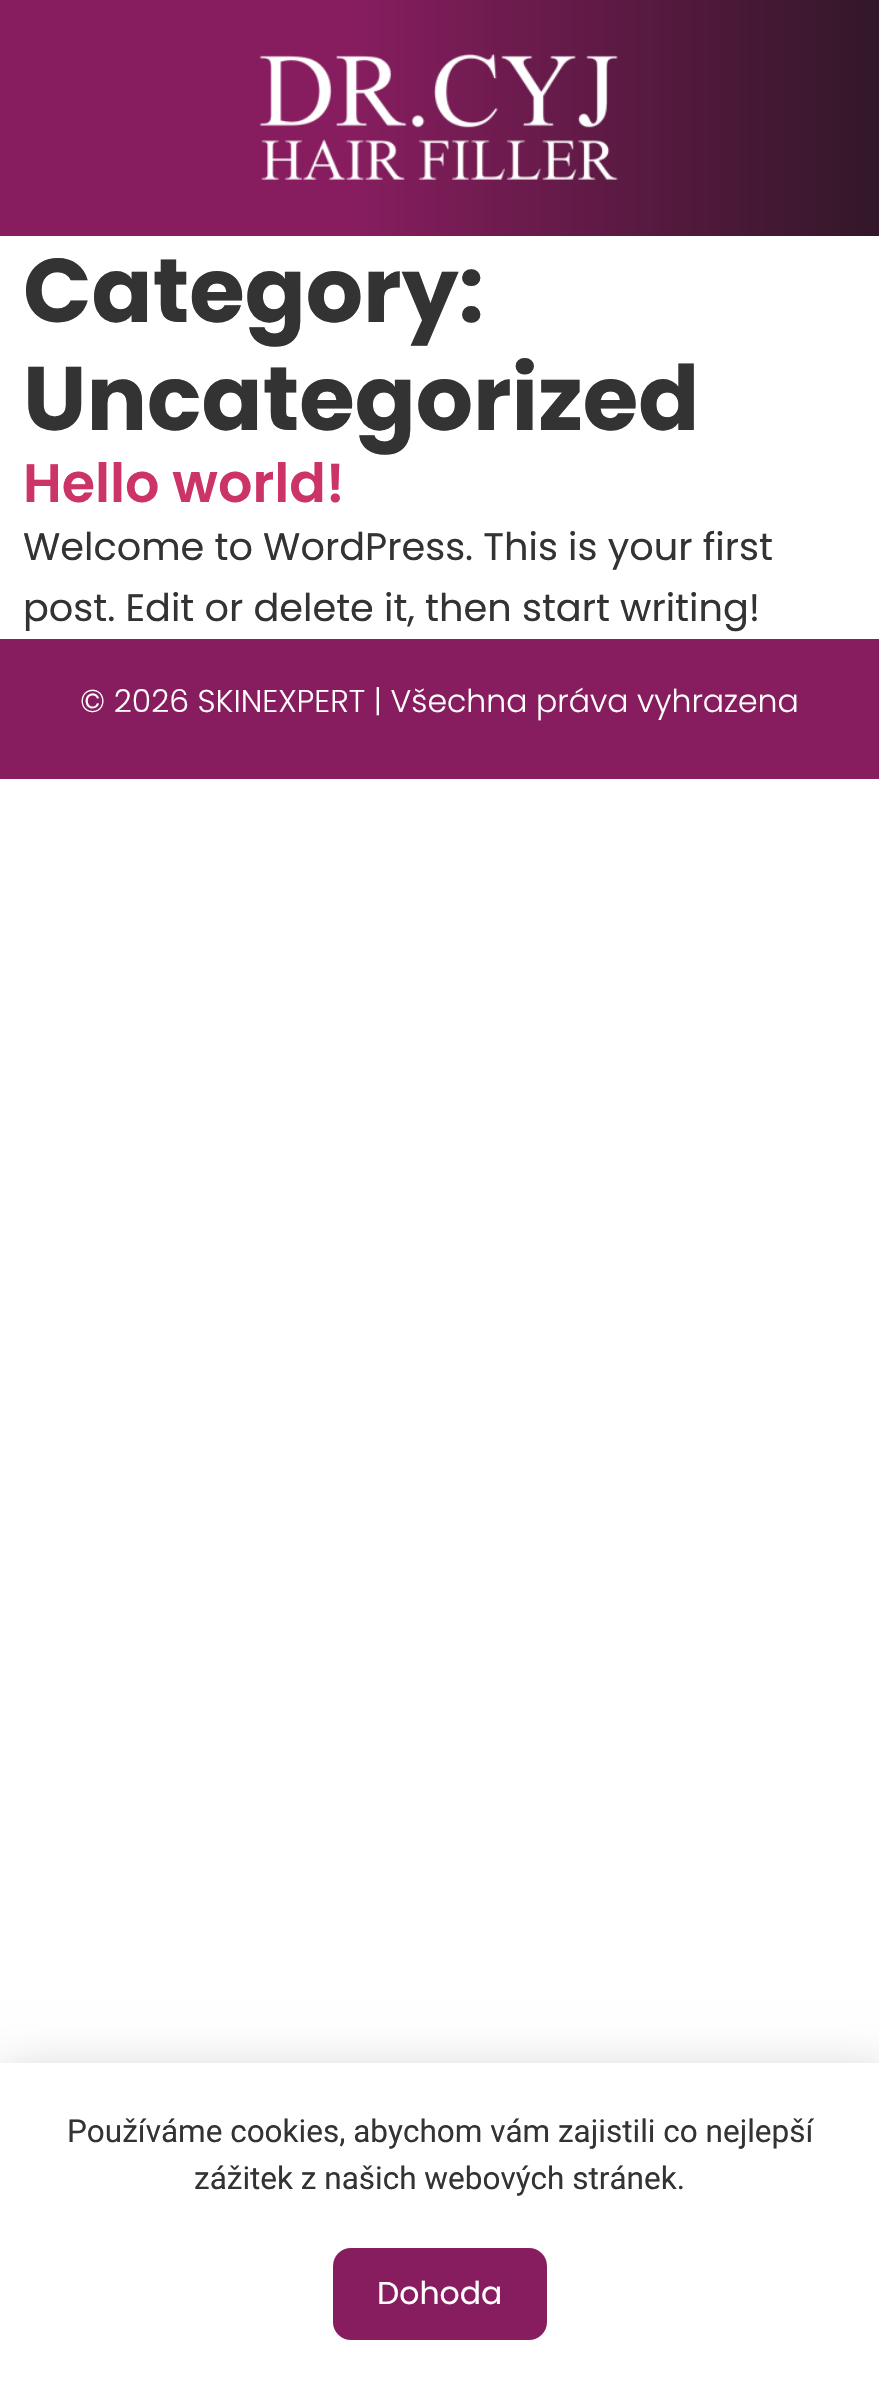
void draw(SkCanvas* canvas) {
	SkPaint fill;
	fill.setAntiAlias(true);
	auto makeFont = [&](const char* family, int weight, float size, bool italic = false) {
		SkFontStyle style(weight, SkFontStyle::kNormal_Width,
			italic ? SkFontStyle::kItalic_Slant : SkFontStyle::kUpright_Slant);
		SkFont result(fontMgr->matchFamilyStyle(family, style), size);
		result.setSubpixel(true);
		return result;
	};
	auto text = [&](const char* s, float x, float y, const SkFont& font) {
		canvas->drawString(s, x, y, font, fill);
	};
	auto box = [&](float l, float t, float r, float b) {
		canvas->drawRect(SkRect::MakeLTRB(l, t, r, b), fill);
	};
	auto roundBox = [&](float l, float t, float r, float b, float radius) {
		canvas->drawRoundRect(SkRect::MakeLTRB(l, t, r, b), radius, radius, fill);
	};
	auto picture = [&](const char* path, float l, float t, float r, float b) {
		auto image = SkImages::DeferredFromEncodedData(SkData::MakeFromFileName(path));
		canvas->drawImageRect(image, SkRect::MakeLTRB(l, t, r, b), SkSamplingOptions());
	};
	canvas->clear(0xFFFFFFFF);
	{
		const SkColor colors[] = {0xFF871D5F, 0xFF321728};
		const float stops[] = {0.4f, 1};
		const SkPoint ends[] = {{0, 118}, {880, 118}};
		fill.setShader(SkGradientShader::MakeLinear(ends, colors, stops, 2, SkTileMode::kClamp));
		fill.setAlpha(255);
	}
	box(0, 0, 879, 236);
	picture("image0.png", 259, 54, 618, 180);
	fill.setShader(nullptr);
	fill.setColor(0xFF871D5F);
	box(0, 639, 879, 779);
	fill.setColor(0x33000000);
	fill.setMaskFilter(SkMaskFilter::MakeBlur(kNormal_SkBlurStyle, 26));
	canvas->drawRect(SkRect::MakeLTRB(-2, 2075, 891, 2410), fill);
	fill.setMaskFilter(nullptr);
	fill.setColor(0xFFFFFFFF);
	box(0, 2063, 879, 2383);
	fill.setColor(0xFF871D5F);
	roundBox(333, 2248, 547, 2340, 18);
	auto font1 = makeFont("Poppins", 700, 90);
	fill.setColor(0xFF333333);
	text("Category:", 23, 322, font1);
	text("Uncategorized", 23, 430, font1);
	auto font2 = makeFont("Poppins", 600, 54);
	fill.setColor(0xFFCC3366);
	text("Hello world!", 23, 502, font2);
	auto font3 = makeFont("Poppins", 400, 38.25f);
	fill.setColor(0xFF333333);
	text("Welcome to WordPress. This is your first", 23, 560, font3);
	text("post. Edit or delete it, then start writing!", 23, 621, font3);
	auto font4 = makeFont("Poppins", 300, 31.5f);
	fill.setColor(0xFFFFFFFF);
	text("© 2026 SKINEXPERT | Všechna práva vyhrazena", 80, 712, font4);
	auto font5 = makeFont("Roboto", 400, 31.5f);
	fill.setColor(0xFF333333);
	text("Používáme cookies, abychom vám zajistili co nejlepší", 67, 2142, font5);
	text("zážitek z našich webových stránek.", 194, 2189, font5);
	auto font6 = makeFont("Poppins", 400, 31.5f);
	fill.setColor(0xFFFFFFFF);
	text("Dohoda", 377, 2304, font6);
}
